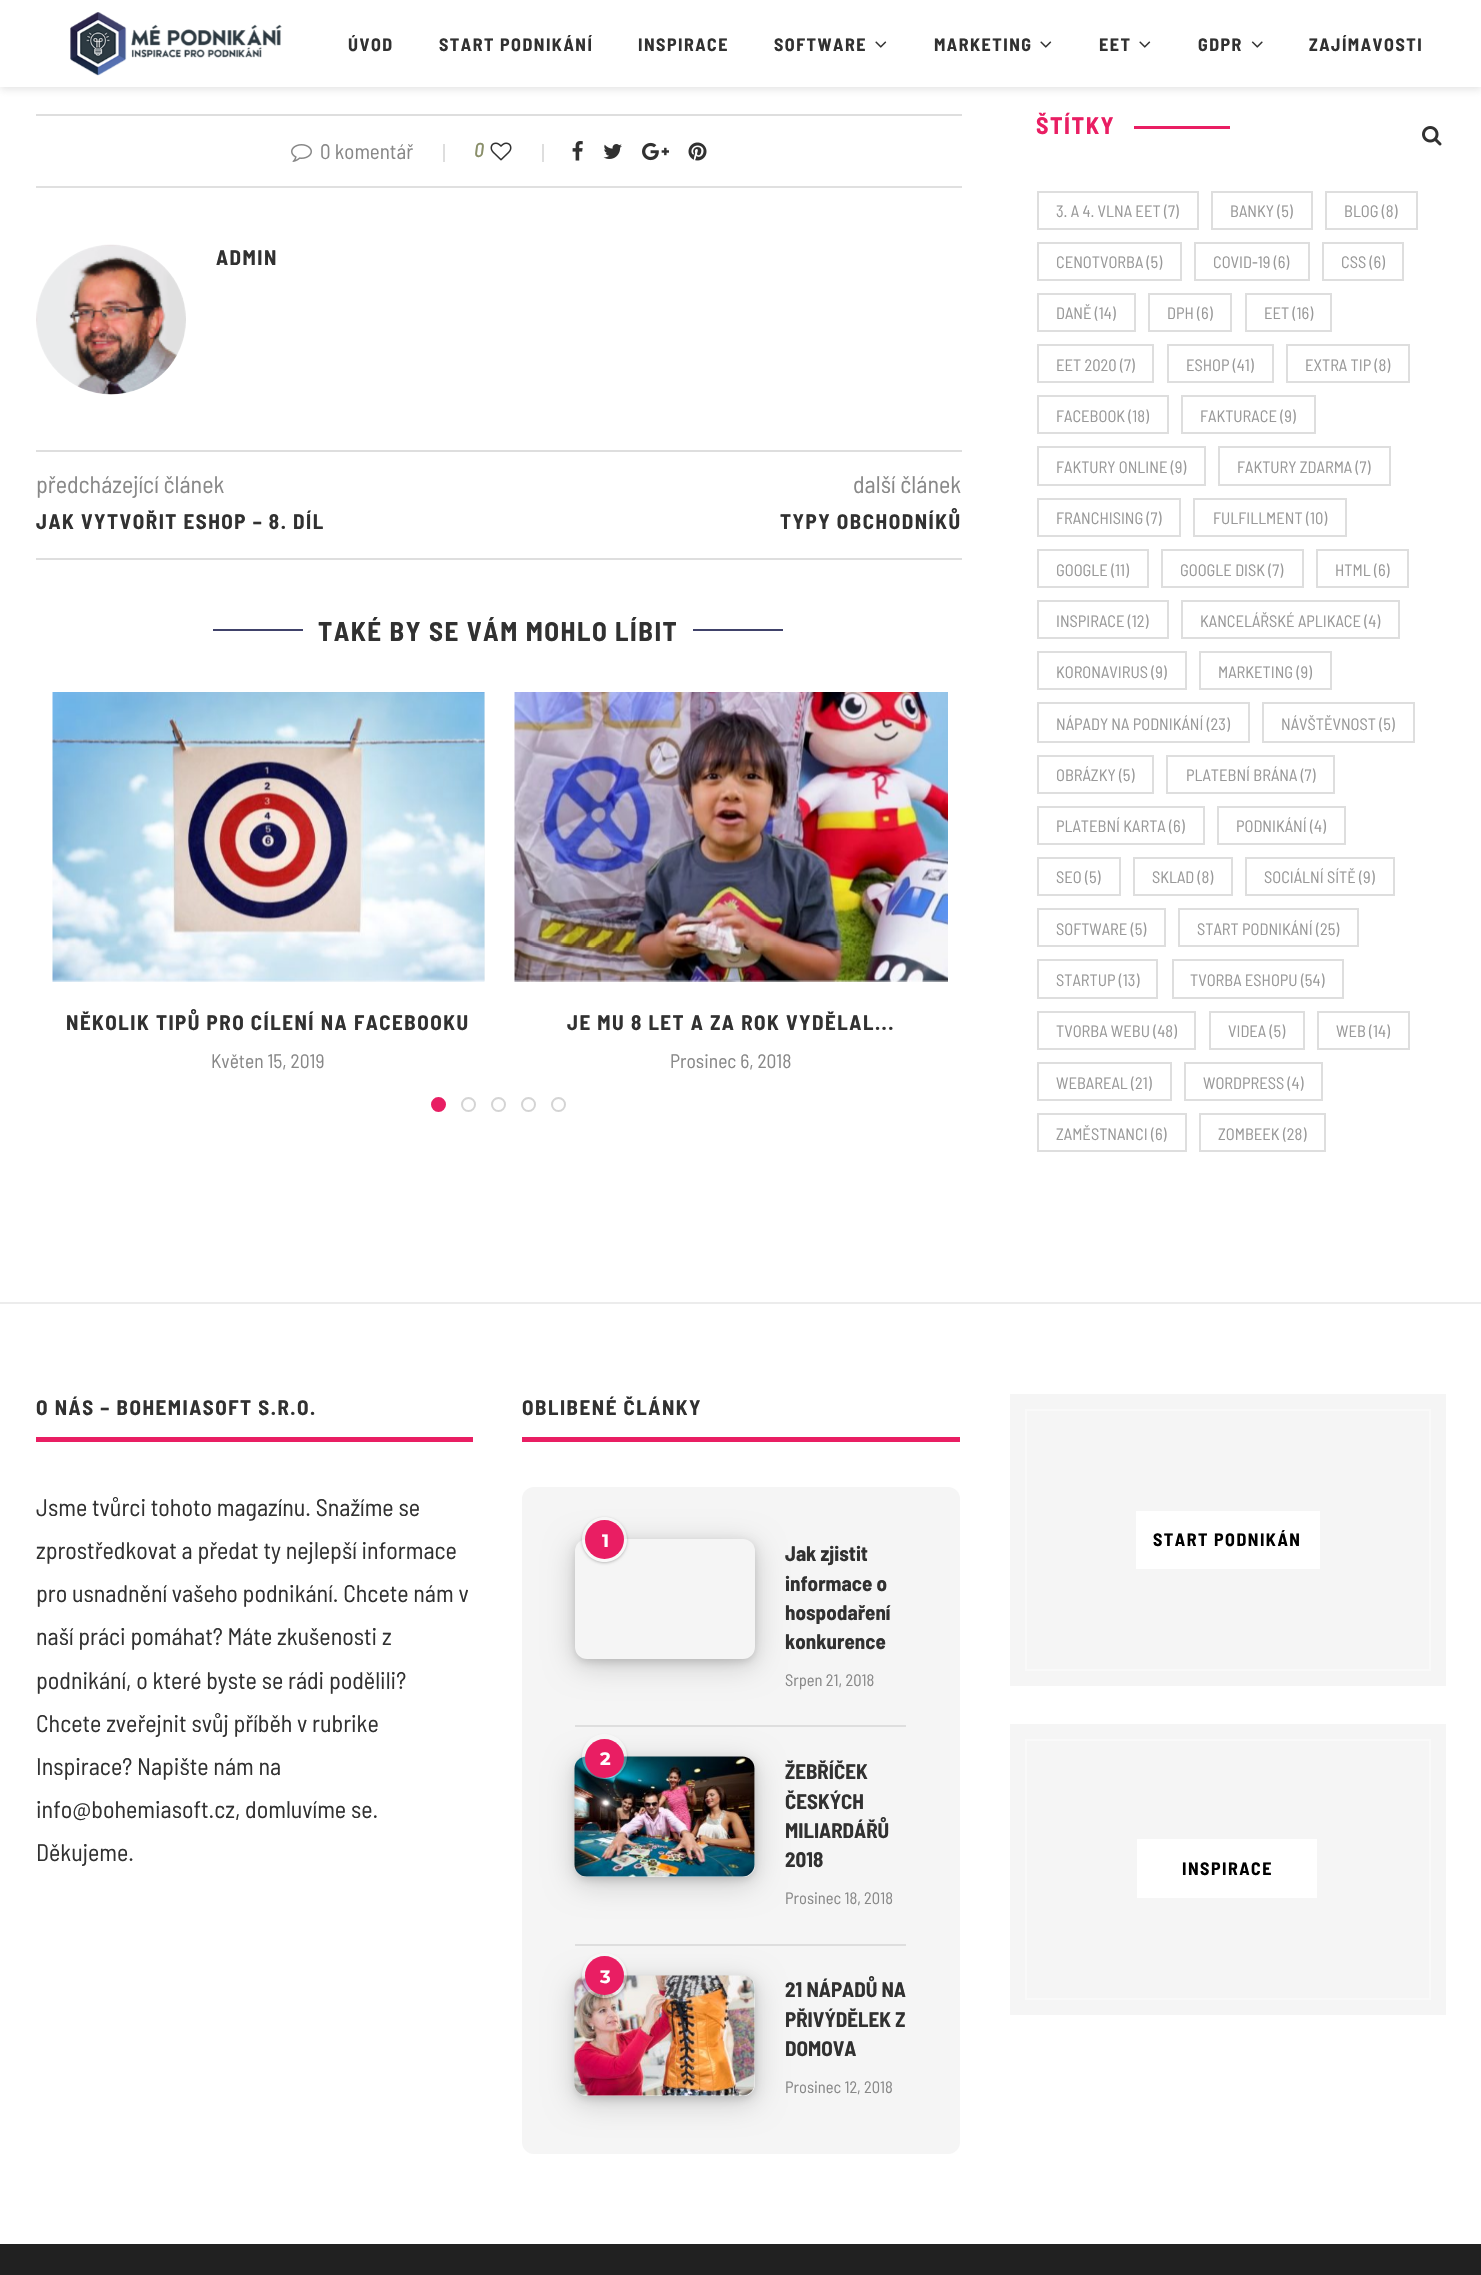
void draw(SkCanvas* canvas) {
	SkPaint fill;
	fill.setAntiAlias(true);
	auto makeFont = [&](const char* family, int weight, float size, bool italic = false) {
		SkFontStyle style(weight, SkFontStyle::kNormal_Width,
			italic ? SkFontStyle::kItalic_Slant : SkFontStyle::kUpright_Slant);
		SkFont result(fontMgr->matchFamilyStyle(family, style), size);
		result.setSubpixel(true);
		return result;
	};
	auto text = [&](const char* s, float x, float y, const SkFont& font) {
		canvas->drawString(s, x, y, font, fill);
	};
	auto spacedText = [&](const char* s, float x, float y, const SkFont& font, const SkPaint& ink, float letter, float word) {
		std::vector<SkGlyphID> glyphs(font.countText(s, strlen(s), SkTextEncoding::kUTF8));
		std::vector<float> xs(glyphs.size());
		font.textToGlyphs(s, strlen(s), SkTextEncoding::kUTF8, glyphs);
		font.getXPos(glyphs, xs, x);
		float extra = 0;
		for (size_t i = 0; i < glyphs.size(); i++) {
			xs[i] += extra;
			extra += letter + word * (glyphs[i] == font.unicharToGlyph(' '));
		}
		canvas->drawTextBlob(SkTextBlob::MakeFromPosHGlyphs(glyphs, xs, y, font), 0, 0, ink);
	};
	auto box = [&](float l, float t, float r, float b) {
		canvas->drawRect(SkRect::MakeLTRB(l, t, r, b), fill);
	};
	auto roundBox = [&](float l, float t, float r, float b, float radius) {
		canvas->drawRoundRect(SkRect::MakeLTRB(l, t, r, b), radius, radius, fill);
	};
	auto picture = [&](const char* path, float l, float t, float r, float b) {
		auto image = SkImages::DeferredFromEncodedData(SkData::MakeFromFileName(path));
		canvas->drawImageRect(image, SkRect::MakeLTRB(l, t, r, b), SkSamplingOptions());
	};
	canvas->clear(0xFFFFFFFF);
	fill.setColor(0x75BEBEBE);
	fill.setMaskFilter(SkMaskFilter::MakeBlur(kNormal_SkBlurStyle, 4));
	canvas->drawRect(SkRect::MakeLTRB(0, 2, 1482, 89), fill);
	fill.setMaskFilter(nullptr);
	fill.setColor(0xFFFFFFFF);
	box(0, 0, 1481, 87);
	picture("image0.png", 70, 12, 282, 76);
	picture("image1.png", 875, 41, 887, 48);
	picture("image1.png", 1040, 41, 1052, 48);
	picture("image1.png", 1139, 41, 1151, 48);
	picture("image2.png", 1251, 41, 1263, 48);
	picture("image3.png", 1422, 126, 1442, 146);
	fill.setColor(0xFFDEDEDE);
	box(36, 114, 962, 116);
	picture("image4.png", 291, 144, 312, 162);
	box(443, 144, 445, 162);
	picture("image5.png", 490, 142, 512, 161);
	box(542, 144, 544, 162);
	picture("image6.png", 572, 141, 583, 161);
	picture("image7.png", 603, 144, 622, 159);
	picture("image8.png", 642, 142, 669, 161);
	picture("image9.png", 688, 142, 707, 161);
	fill.setColor(0xFFE0E0E0);
	box(36, 186, 962, 188);
	picture("image10.png", 36, 244, 186, 395);
	fill.setColor(0xFFDEDEDE);
	box(36, 450, 962, 452);
	box(36, 558, 962, 560);
	fill.setColor(0xFF40426A);
	box(213, 629, 303, 631);
	box(693, 629, 783, 631);
	fill.setColor(0xFFF5F5F5);
	box(53, 692, 485, 981);
	picture("image11.png", 52, 692, 485, 982);
	picture("image12.png", 514, 692, 948, 982);
	fill.setColor(0xFFE81E63);
	canvas->drawCircle(438.5f, 1104.5f, 6.5f, fill);
	fill.setStyle(SkPaint::kStroke_Style);
	fill.setStrokeWidth(2);
	canvas->drawCircle(438.5f, 1104.5f, 6.5f, fill);
	fill.setColor(0xFFD4D4D4);
	canvas->drawCircle(468.5f, 1104.5f, 6.5f, fill);
	canvas->drawCircle(498.5f, 1104.5f, 6.5f, fill);
	canvas->drawCircle(528.5f, 1104.5f, 6.5f, fill);
	canvas->drawCircle(558.5f, 1104.5f, 6.5f, fill);
	fill.setStyle(SkPaint::kFill_Style);
	fill.setColor(0xFFE91E63);
	box(1134, 126, 1230, 129);
	fill.setStyle(SkPaint::kStroke_Style);
	fill.setColor(0xFFDEDEDE);
	canvas->drawRect(SkRect::MakeLTRB(1038, 192, 1198, 229), fill);
	canvas->drawRect(SkRect::MakeLTRB(1212, 192, 1312, 229), fill);
	canvas->drawRect(SkRect::MakeLTRB(1326, 192, 1417, 229), fill);
	canvas->drawRect(SkRect::MakeLTRB(1038, 243, 1181, 280), fill);
	canvas->drawRect(SkRect::MakeLTRB(1195, 243, 1309, 280), fill);
	canvas->drawRect(SkRect::MakeLTRB(1323, 243, 1403, 280), fill);
	canvas->drawRect(SkRect::MakeLTRB(1038, 294, 1135, 331), fill);
	canvas->drawRect(SkRect::MakeLTRB(1149, 294, 1231, 331), fill);
	canvas->drawRect(SkRect::MakeLTRB(1246, 294, 1331, 331), fill);
	canvas->drawRect(SkRect::MakeLTRB(1038, 345, 1153, 382), fill);
	canvas->drawRect(SkRect::MakeLTRB(1168, 345, 1273, 382), fill);
	canvas->drawRect(SkRect::MakeLTRB(1287, 345, 1409, 382), fill);
	canvas->drawRect(SkRect::MakeLTRB(1038, 396, 1168, 433), fill);
	canvas->drawRect(SkRect::MakeLTRB(1182, 396, 1315, 433), fill);
	canvas->drawRect(SkRect::MakeLTRB(1038, 447, 1205, 485), fill);
	canvas->drawRect(SkRect::MakeLTRB(1219, 447, 1390, 485), fill);
	canvas->drawRect(SkRect::MakeLTRB(1038, 499, 1180, 536), fill);
	canvas->drawRect(SkRect::MakeLTRB(1194, 499, 1346, 536), fill);
	canvas->drawRect(SkRect::MakeLTRB(1038, 550, 1148, 587), fill);
	canvas->drawRect(SkRect::MakeLTRB(1162, 550, 1303, 587), fill);
	canvas->drawRect(SkRect::MakeLTRB(1317, 550, 1408, 587), fill);
	canvas->drawRect(SkRect::MakeLTRB(1038, 601, 1168, 638), fill);
	canvas->drawRect(SkRect::MakeLTRB(1182, 601, 1399, 638), fill);
	canvas->drawRect(SkRect::MakeLTRB(1038, 652, 1186, 689), fill);
	canvas->drawRect(SkRect::MakeLTRB(1200, 652, 1331, 689), fill);
	canvas->drawRect(SkRect::MakeLTRB(1038, 703, 1249, 742), fill);
	canvas->drawRect(SkRect::MakeLTRB(1263, 703, 1414, 742), fill);
	canvas->drawRect(SkRect::MakeLTRB(1038, 756, 1153, 793), fill);
	canvas->drawRect(SkRect::MakeLTRB(1167, 756, 1334, 793), fill);
	canvas->drawRect(SkRect::MakeLTRB(1038, 807, 1204, 844), fill);
	canvas->drawRect(SkRect::MakeLTRB(1218, 807, 1345, 844), fill);
	canvas->drawRect(SkRect::MakeLTRB(1038, 858, 1120, 895), fill);
	canvas->drawRect(SkRect::MakeLTRB(1134, 858, 1232, 895), fill);
	canvas->drawRect(SkRect::MakeLTRB(1246, 858, 1394, 895), fill);
	canvas->drawRect(SkRect::MakeLTRB(1038, 909, 1165, 946), fill);
	canvas->drawRect(SkRect::MakeLTRB(1179, 909, 1358, 946), fill);
	canvas->drawRect(SkRect::MakeLTRB(1038, 960, 1157, 998), fill);
	canvas->drawRect(SkRect::MakeLTRB(1173, 960, 1343, 998), fill);
	canvas->drawRect(SkRect::MakeLTRB(1038, 1012, 1195, 1049), fill);
	canvas->drawRect(SkRect::MakeLTRB(1210, 1012, 1304, 1049), fill);
	canvas->drawRect(SkRect::MakeLTRB(1318, 1012, 1409, 1049), fill);
	canvas->drawRect(SkRect::MakeLTRB(1038, 1063, 1171, 1100), fill);
	canvas->drawRect(SkRect::MakeLTRB(1185, 1063, 1322, 1100), fill);
	canvas->drawRect(SkRect::MakeLTRB(1038, 1114, 1186, 1151), fill);
	canvas->drawRect(SkRect::MakeLTRB(1200, 1114, 1325, 1151), fill);
	fill.setStyle(SkPaint::kFill_Style);
	fill.setColor(0xFFECECEC);
	box(0, 1302, 1481, 1304);
	fill.setColor(0xFFE91E63);
	box(36, 1437, 473, 1442);
	box(522, 1437, 960, 1442);
	fill.setColor(0xFFF5F5F5);
	roundBox(522, 1487, 960, 2154, 12);
	fill.setColor(0xFFDEDEDE);
	box(575, 1725, 906, 1727);
	fill.setColor(0x2E000000);
	fill.setMaskFilter(SkMaskFilter::MakeBlur(kNormal_SkBlurStyle, 15));
	canvas->drawRoundRect(SkRect::MakeLTRB(575, 1545, 755, 1665), 12, 12, fill);
	fill.setMaskFilter(nullptr);
	fill.setColor(0x24000000);
	fill.setMaskFilter(SkMaskFilter::MakeBlur(kNormal_SkBlurStyle, 4.5f));
	canvas->drawRoundRect(SkRect::MakeLTRB(575, 1542, 755, 1662), 12, 12, fill);
	fill.setMaskFilter(nullptr);
	{
		const SkColor colors[] = {0xFFF5F5F5, 0xFFEFEFEF, 0xFFF5F5F5, 0xFFF5F5F5};
		const float stops[] = {0, 0.15f, 0.4f, 1};
		const SkPoint ends[] = {{1340, 1599}, {-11, 1599}};
		fill.setShader(SkGradientShader::MakeLinear(ends, colors, stops, 4, SkTileMode::kClamp));
		fill.setAlpha(255);
	}
	roundBox(575, 1539, 755, 1659, 12);
	canvas->save();
	canvas->clipPath(SkPathBuilder(SkPathFillType::kEvenOdd).moveTo(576, 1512).lineTo(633, 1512).lineTo(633, 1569).lineTo(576, 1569).close().moveTo(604.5f, 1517).cubicTo(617, 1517, 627, 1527, 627, 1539.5f).cubicTo(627, 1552, 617, 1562, 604.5f, 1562).cubicTo(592, 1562, 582, 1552, 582, 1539.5f).cubicTo(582, 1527, 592, 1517, 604.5f, 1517).close().detach(), true);
	fill.setShader(nullptr);
	fill.setColor(0x40000000);
	fill.setMaskFilter(SkMaskFilter::MakeBlur(kNormal_SkBlurStyle, 1.5f));
	canvas->drawRoundRect(SkRect::MakeLTRB(582, 1518, 627, 1563), 22.5f, 22.5f, fill);
	fill.setMaskFilter(nullptr);
	canvas->restore();
	fill.setColor(0x4DFFFFFF);
	canvas->drawCircle(604.5f, 1539.5f, 22.5f, fill);
	fill.setColor(0xFFE91E63);
	canvas->drawCircle(604.5f, 1539.5f, 19.5f, fill);
	fill.setColor(0xFFDEDEDE);
	box(575, 1944, 906, 1946);
	fill.setColor(0x2E000000);
	fill.setMaskFilter(SkMaskFilter::MakeBlur(kNormal_SkBlurStyle, 15));
	canvas->drawRoundRect(SkRect::MakeLTRB(575, 1763, 755, 1883), 12, 12, fill);
	fill.setMaskFilter(nullptr);
	fill.setColor(0x24000000);
	fill.setMaskFilter(SkMaskFilter::MakeBlur(kNormal_SkBlurStyle, 4.5f));
	canvas->drawRoundRect(SkRect::MakeLTRB(575, 1760, 755, 1880), 12, 12, fill);
	fill.setMaskFilter(nullptr);
	fill.setColor(0xFFF5F5F5);
	roundBox(575, 1757, 755, 1877, 12);
	picture("image13.png", 574, 1756, 755, 1877);
	canvas->save();
	canvas->clipPath(SkPathBuilder(SkPathFillType::kEvenOdd).moveTo(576, 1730).lineTo(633, 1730).lineTo(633, 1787).lineTo(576, 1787).close().moveTo(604.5f, 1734).cubicTo(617, 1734, 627, 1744, 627, 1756.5f).cubicTo(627, 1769, 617, 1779, 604.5f, 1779).cubicTo(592, 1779, 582, 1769, 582, 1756.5f).cubicTo(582, 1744, 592, 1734, 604.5f, 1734).close().detach(), true);
	fill.setColor(0x40000000);
	fill.setMaskFilter(SkMaskFilter::MakeBlur(kNormal_SkBlurStyle, 1.5f));
	canvas->drawRoundRect(SkRect::MakeLTRB(582, 1736, 627, 1781), 22.5f, 22.5f, fill);
	fill.setMaskFilter(nullptr);
	canvas->restore();
	fill.setColor(0x4DFFFFFF);
	canvas->drawCircle(604.5f, 1756.5f, 22.5f, fill);
	fill.setColor(0xFFE91E63);
	canvas->drawCircle(604.5f, 1758.5f, 19.5f, fill);
	fill.setColor(0x2E000000);
	fill.setMaskFilter(SkMaskFilter::MakeBlur(kNormal_SkBlurStyle, 15));
	canvas->drawRoundRect(SkRect::MakeLTRB(575, 1982, 755, 2102), 12, 12, fill);
	fill.setMaskFilter(nullptr);
	fill.setColor(0x24000000);
	fill.setMaskFilter(SkMaskFilter::MakeBlur(kNormal_SkBlurStyle, 4.5f));
	canvas->drawRoundRect(SkRect::MakeLTRB(575, 1979, 755, 2099), 12, 12, fill);
	fill.setMaskFilter(nullptr);
	fill.setColor(0xFFF5F5F5);
	roundBox(575, 1976, 755, 2096, 12);
	picture("image14.png", 574, 1975, 755, 2096);
	canvas->save();
	canvas->clipPath(SkPathBuilder(SkPathFillType::kEvenOdd).moveTo(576, 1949).lineTo(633, 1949).lineTo(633, 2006).lineTo(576, 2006).close().moveTo(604.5f, 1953).cubicTo(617, 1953, 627, 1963, 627, 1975.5f).cubicTo(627, 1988, 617, 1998, 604.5f, 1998).cubicTo(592, 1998, 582, 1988, 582, 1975.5f).cubicTo(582, 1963, 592, 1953, 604.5f, 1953).close().detach(), true);
	fill.setColor(0x40000000);
	fill.setMaskFilter(SkMaskFilter::MakeBlur(kNormal_SkBlurStyle, 1.5f));
	canvas->drawRoundRect(SkRect::MakeLTRB(582, 1955, 627, 2000), 22.5f, 22.5f, fill);
	fill.setMaskFilter(nullptr);
	canvas->restore();
	fill.setColor(0x4DFFFFFF);
	canvas->drawCircle(604.5f, 1975.5f, 22.5f, fill);
	fill.setColor(0xFFE91E63);
	canvas->drawCircle(604.5f, 1975.5f, 19.5f, fill);
	fill.setColor(0xFFF5F5F5);
	box(1010, 1394, 1446, 1686);
	fill.setColor(0xFFFFFFFF);
	box(1136, 1511, 1320, 1569);
	fill.setStyle(SkPaint::kStroke_Style);
	fill.setColor(0xFFF9F9F9);
	canvas->drawRect(SkRect::MakeLTRB(1026, 1410, 1430, 1670), fill);
	fill.setStyle(SkPaint::kFill_Style);
	fill.setColor(0xFFF5F5F5);
	box(1010, 1724, 1446, 2015);
	fill.setColor(0xFFFFFFFF);
	box(1137, 1839, 1317, 1898);
	fill.setStyle(SkPaint::kStroke_Style);
	fill.setColor(0xFFF9F9F9);
	canvas->drawRect(SkRect::MakeLTRB(1026, 1740, 1430, 1999), fill);
	fill.setStyle(SkPaint::kFill_Style);
	fill.setColor(0xFF212121);
	box(0, 2244, 1481, 2275);
	auto font1 = makeFont("Barlow Semi Condensed", 700, 18);
	fill.setColor(0xFF313131);
	spacedText("ÚVOD", 348, 51, font1, fill, 1.5f, 0);
	spacedText("START PODNIKÁNÍ", 439, 51, font1, fill, 1.5f, 0);
	spacedText("INSPIRACE", 638, 51, font1, fill, 1.5f, 0);
	spacedText("SOFTWARE", 774, 51, font1, fill, 1.5f, 0);
	spacedText("MARKETING", 934, 51, font1, fill, 1.5f, 0);
	spacedText("EET", 1099, 51, font1, fill, 1.5f, 0);
	spacedText("GDPR", 1198, 51, font1, fill, 1.5f, 0);
	spacedText("ZAJÍMAVOSTI", 1309, 51, font1, fill, 1.5f, 0);
	auto font2 = makeFont("Barlow Semi Condensed", 400, 21);
	fill.setColor(0xFF888888);
	text("0 komentář", 320, 159, font2);
	auto font3 = makeFont("Barlow Semi Condensed", 700, 19.5f, true);
	fill.setColor(0xFF8A8F6A);
	text("0", 474, 157, font3);
	auto font4 = makeFont("Barlow Semi Condensed", 700, 21);
	fill.setColor(0xFF313131);
	spacedText("ADMIN", 216, 265, font4, fill, 1.5f, 0);
	auto font5 = makeFont("Barlow Semi Condensed", 400, 24);
	fill.setColor(0xFF888888);
	text("předcházející článek", 36, 493, font5);
	fill.setColor(0xFF313131);
	spacedText("JAK VYTVOŘIT ESHOP – 8. DÍL", 36, 529, font4, fill, 1.5f, 0);
	fill.setColor(0xFF888888);
	text("další článek", 853, 493, font5);
	fill.setColor(0xFF313131);
	spacedText("TYPY OBCHODNÍKŮ", 780, 529, font4, fill, 1.5f, 0);
	auto font6 = makeFont("Barlow Semi Condensed", 700, 27);
	spacedText("TAKÉ BY SE VÁM MOHLO LÍBIT", 318, 641, font6, fill, 1.5f, 0);
	spacedText("NĚKOLIK TIPŮ PRO CÍLENÍ NA FACEBOOKU", 66, 1030, font4, fill, 1.5f, 0);
	auto font7 = makeFont("Barlow Semi Condensed", 400, 19.5f);
	fill.setColor(0xFF888888);
	text("Květen 15, 2019", 211, 1068, font7);
	fill.setColor(0xFF313131);
	spacedText("JE MU 8 LET A ZA ROK VYDĚLAL...", 567, 1030, font4, fill, 1.5f, 0);
	fill.setColor(0xFF888888);
	text("Prosinec 6, 2018", 670, 1068, font7);
	auto font8 = makeFont("Barlow Semi Condensed", 700, 24);
	fill.setColor(0xFFE91E63);
	spacedText("ŠTÍTKY", 1036, 134, font8, fill, 1.5f, 0);
	auto font9 = makeFont("Barlow Semi Condensed", 400, 16.5f);
	fill.setColor(0xFF999999);
	text("3. A 4. VLNA EET (7)", 1056, 217, font9);
	text("BANKY (5)", 1230, 217, font9);
	text("BLOG (8)", 1344, 217, font9);
	text("CENOTVORBA (5)", 1056, 268, font9);
	text("COVID-19 (6)", 1213, 268, font9);
	text("CSS (6)", 1341, 268, font9);
	text("DANĚ (14)", 1056, 319, font9);
	text("DPH (6)", 1167, 319, font9);
	text("EET (16)", 1264, 319, font9);
	text("EET 2020 (7)", 1056, 371, font9);
	text("ESHOP (41)", 1186, 371, font9);
	text("EXTRA TIP (8)", 1305, 371, font9);
	text("FACEBOOK (18)", 1056, 422, font9);
	text("FAKTURACE (9)", 1200, 422, font9);
	text("FAKTURY ONLINE (9)", 1056, 473, font9);
	text("FAKTURY ZDARMA (7)", 1237, 473, font9);
	text("FRANCHISING (7)", 1056, 524, font9);
	text("FULFILLMENT (10)", 1213, 524, font9);
	text("GOOGLE (11)", 1056, 576, font9);
	text("GOOGLE DISK (7)", 1180, 576, font9);
	text("HTML (6)", 1335, 576, font9);
	text("INSPIRACE (12)", 1056, 627, font9);
	text("KANCELÁŘSKÉ APLIKACE (4)", 1200, 627, font9);
	text("KORONAVIRUS (9)", 1056, 678, font9);
	text("MARKETING (9)", 1218, 678, font9);
	text("NÁPADY NA PODNIKÁNÍ (23)", 1056, 730, font9);
	text("NÁVŠTĚVNOST (5)", 1281, 730, font9);
	text("OBRÁZKY (5)", 1056, 781, font9);
	text("PLATEBNÍ BRÁNA (7)", 1186, 781, font9);
	text("PLATEBNÍ KARTA (6)", 1056, 832, font9);
	text("PODNIKÁNÍ (4)", 1236, 832, font9);
	text("SEO (5)", 1056, 883, font9);
	text("SKLAD (8)", 1152, 883, font9);
	text("SOCIÁLNÍ SÍTĚ (9)", 1264, 883, font9);
	text("SOFTWARE (5)", 1056, 935, font9);
	text("START PODNIKÁNÍ (25)", 1197, 935, font9);
	text("STARTUP (13)", 1056, 986, font9);
	text("TVORBA ESHOPU (54)", 1190, 986, font9);
	text("TVORBA WEBU (48)", 1056, 1037, font9);
	text("VIDEA (5)", 1228, 1037, font9);
	text("WEB (14)", 1336, 1037, font9);
	text("WEBAREAL (21)", 1056, 1089, font9);
	text("WORDPRESS (4)", 1203, 1089, font9);
	text("ZAMĚSTNANCI (6)", 1056, 1140, font9);
	text("ZOMBEEK (28)", 1218, 1140, font9);
	fill.setColor(0xFF313131);
	spacedText("O NÁS – BOHEMIASOFT S.R.O.", 36, 1415, font4, fill, 1.5f, 0);
	text("Jsme tvůrci tohoto magazínu. Snažíme se", 36, 1516, font5);
	text("zprostředkovat a předat ty nejlepší informace", 36, 1559, font5);
	text("pro usnadnění vašeho podnikání. Chcete nám v", 36, 1602, font5);
	text("naší práci pomáhat? Máte zkušenosti z", 36, 1645, font5);
	text("podnikání, o které byste se rádi podělili?", 36, 1689, font5);
	text("Chcete zveřejnit svůj příběh v rubrike", 36, 1732, font5);
	text("Inspirace? Napište nám na", 36, 1775, font5);
	text("info@bohemiasoft.cz, domluvíme se.", 36, 1818, font5);
	text("Děkujeme.", 36, 1861, font5);
	spacedText("OBLIBENÉ ČLÁNKY", 522, 1415, font4, fill, 1.5f, 0);
	auto font10 = makeFont("Montserrat", 700, 18);
	fill.setColor(0xFFFFFFFF);
	text("1", 602, 1547, font10);
	fill.setColor(0xFF313131);
	text("Jak zjistit", 785, 1561, font4);
	text("informace o", 785, 1591, font4);
	text("hospodaření", 785, 1620, font4);
	text("konkurence", 785, 1649, font4);
	fill.setColor(0xFF888888);
	text("Srpen 21, 2018", 785, 1686, font9);
	fill.setColor(0xFFFFFFFF);
	text("2", 600, 1765, font10);
	fill.setColor(0xFF313131);
	text("ŽEBŘÍČEK", 785, 1779, font4);
	text("ČESKÝCH", 785, 1809, font4);
	text("MILIARDÁŘŮ", 785, 1838, font4);
	text("2018", 785, 1867, font4);
	fill.setColor(0xFF888888);
	text("Prosinec 18, 2018", 785, 1904, font9);
	fill.setColor(0xFFFFFFFF);
	text("3", 600, 1983, font10);
	fill.setColor(0xFF313131);
	text("21 NÁPADŮ NA", 785, 1997, font4);
	text("PŘIVÝDĚLEK Z", 785, 2027, font4);
	text("DOMOVA", 785, 2056, font4);
	fill.setColor(0xFF888888);
	text("Prosinec 12, 2018", 785, 2093, font9);
	fill.setColor(0xFF010101);
	spacedText("START PODNIKÁN", 1153, 1546, font1, fill, 1.5f, 0);
	spacedText("INSPIRACE", 1182, 1875, font1, fill, 1.5f, 0);
}
